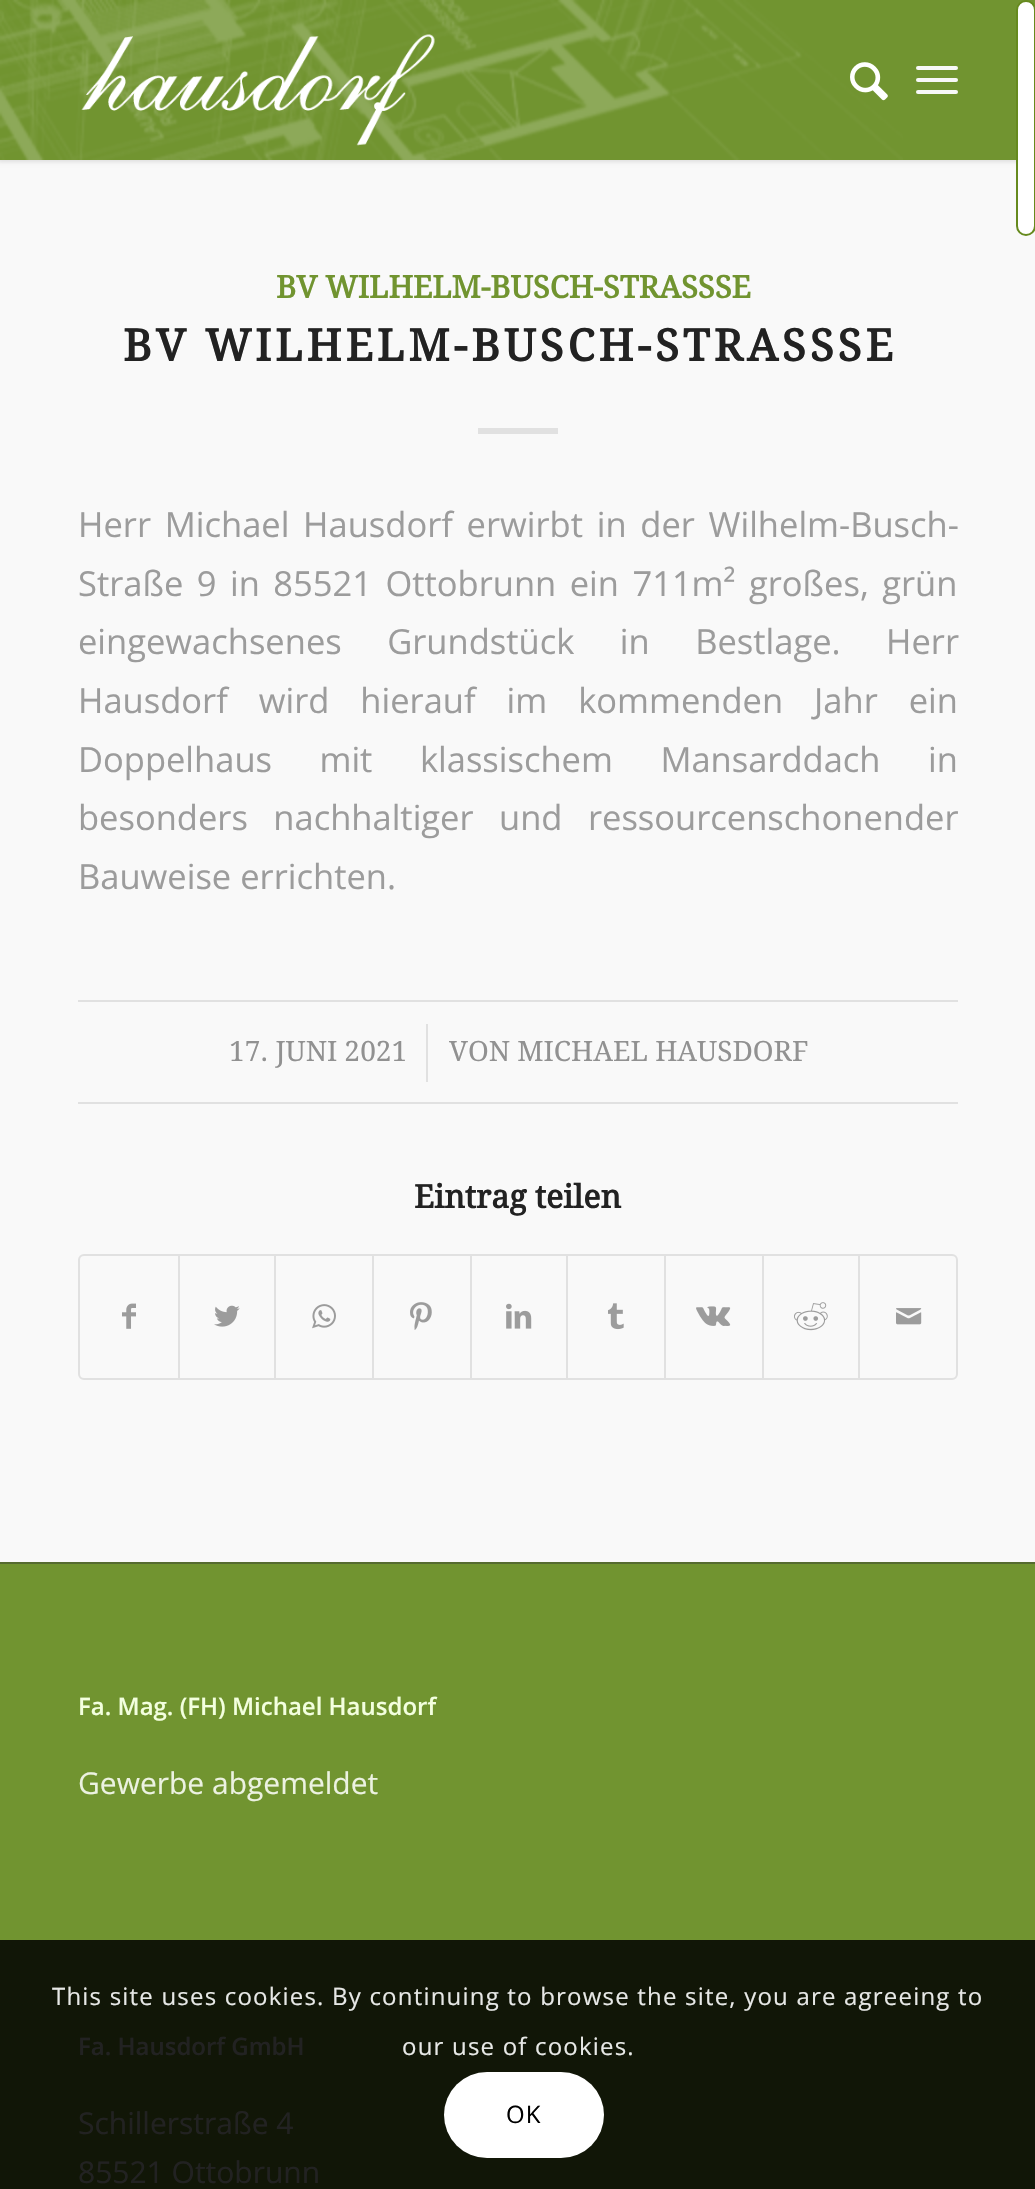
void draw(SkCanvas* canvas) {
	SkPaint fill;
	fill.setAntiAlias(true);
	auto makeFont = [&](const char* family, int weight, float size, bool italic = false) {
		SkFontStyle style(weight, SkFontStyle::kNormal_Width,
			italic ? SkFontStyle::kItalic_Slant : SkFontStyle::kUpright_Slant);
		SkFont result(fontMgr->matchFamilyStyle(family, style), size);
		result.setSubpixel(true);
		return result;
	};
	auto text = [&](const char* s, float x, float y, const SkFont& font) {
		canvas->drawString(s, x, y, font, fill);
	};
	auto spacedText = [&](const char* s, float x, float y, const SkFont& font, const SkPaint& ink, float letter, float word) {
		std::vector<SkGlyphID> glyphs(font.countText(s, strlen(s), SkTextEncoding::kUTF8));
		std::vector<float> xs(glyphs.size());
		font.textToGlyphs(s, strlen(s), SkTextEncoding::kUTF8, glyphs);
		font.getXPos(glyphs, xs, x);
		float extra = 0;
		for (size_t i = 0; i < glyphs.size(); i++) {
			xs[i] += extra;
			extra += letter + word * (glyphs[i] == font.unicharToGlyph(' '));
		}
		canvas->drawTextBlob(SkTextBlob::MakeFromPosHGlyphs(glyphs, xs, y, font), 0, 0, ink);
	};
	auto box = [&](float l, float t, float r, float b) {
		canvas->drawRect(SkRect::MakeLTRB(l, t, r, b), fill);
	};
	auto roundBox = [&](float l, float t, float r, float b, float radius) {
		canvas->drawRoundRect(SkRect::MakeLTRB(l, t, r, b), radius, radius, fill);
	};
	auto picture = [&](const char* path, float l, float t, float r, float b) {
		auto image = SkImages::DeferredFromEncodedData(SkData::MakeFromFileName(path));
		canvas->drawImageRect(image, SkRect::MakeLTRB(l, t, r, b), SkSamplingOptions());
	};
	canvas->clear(0xFF719430);
	fill.setColor(0xFFF9F9F9);
	box(0, 160, 1035, 1562);
	fill.setColor(0x1A000000);
	fill.setMaskFilter(SkMaskFilter::MakeBlur(kNormal_SkBlurStyle, 2));
	canvas->drawRect(SkRect::MakeLTRB(-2, -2, 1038, 162), fill);
	fill.setMaskFilter(nullptr);
	fill.setColor(0xFF719430);
	box(0, 0, 1035, 160);
	fill.setColor(0xFFFFFFFF);
	canvas->drawRoundRect(SkRect::MakeLTRB(1017, 1, 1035, 235), 9, 9, fill);
	fill.setStyle(SkPaint::kStroke_Style);
	fill.setStrokeWidth(2);
	fill.setColor(0xFF668A1E);
	canvas->drawRoundRect(SkRect::MakeLTRB(1017, 1, 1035, 235), 9, 9, fill);
	picture("image0.png", 0, 0, 903, 160);
	picture("image1.png", 81, 34, 435, 146);
	picture("image2.png", 850, 62, 888, 101);
	fill.setStyle(SkPaint::kFill_Style);
	fill.setColor(0xFFF8F8F8);
	roundBox(916, 78, 958, 82, 2);
	roundBox(916, 66, 958, 70, 2);
	roundBox(916, 90, 958, 94, 2);
	fill.setColor(0xFF111607);
	box(0, 1940, 1035, 2189);
	fill.setColor(0xFFE1E1E1);
	box(478, 428, 558, 434);
	box(78, 1000, 958, 1002);
	box(78, 1102, 958, 1104);
	box(426, 1024, 428, 1082);
	fill.setStyle(SkPaint::kStroke_Style);
	canvas->drawRoundRect(SkRect::MakeLTRB(79, 1255, 957, 1379), 5, 5, fill);
	picture("image3.png", 122, 1303, 136, 1329);
	fill.setStyle(SkPaint::kFill_Style);
	box(178, 1256, 180, 1378);
	picture("image4.png", 214, 1305, 240, 1327);
	box(274, 1256, 276, 1378);
	picture("image5.png", 312, 1304, 336, 1329);
	box(372, 1256, 374, 1378);
	picture("image6.png", 410, 1302, 432, 1330);
	box(470, 1256, 472, 1378);
	picture("image7.png", 506, 1303, 532, 1329);
	box(566, 1256, 568, 1378);
	picture("image8.png", 608, 1303, 624, 1330);
	box(664, 1256, 666, 1378);
	picture("image9.png", 696, 1306, 731, 1326);
	box(762, 1256, 764, 1378);
	picture("image10.png", 794, 1302, 828, 1331);
	box(858, 1256, 860, 1378);
	picture("image11.png", 896, 1308, 922, 1325);
	fill.setColor(0xFF556B2F);
	box(0, 1562, 1035, 1564);
	fill.setColor(0xFFFFFFFF);
	roundBox(444, 2072, 604, 2158, 43);
	auto font1 = makeFont("Droid Serif", 700, 31);
	fill.setColor(0xFF719430);
	text("BV WILHELM-BUSCH-STRASSSE", 276, 298, font1);
	auto font2 = makeFont("Droid Serif", 700, 44);
	fill.setColor(0xFF222222);
	spacedText("BV WILHELM-BUSCH-STRASSSE", 123, 361, font2, fill, 4, 0);
	auto font3 = makeFont("Open Sans", 400, 34.5f);
	fill.setColor(0xFF9C9C9C);
	spacedText("Herr Michael Hausdorf erwirbt in der Wilhelm-Busch-", 78, 537, font3, fill, 0, 4.75f);
	spacedText("Straße 9 in 85521 Ottobrunn ein 711m² großes, grün", 78, 596, font3, fill, 0, 4.5f);
	spacedText("eingewachsenes Grundstück in Bestlage. Herr", 78, 654, font3, fill, 0, 36.5f);
	spacedText("Hausdorf wird hierauf im kommenden Jahr ein", 78, 713, font3, fill, 0, 22);
	spacedText("Doppelhaus mit klassischem Mansarddach in", 78, 772, font3, fill, 0, 38.5f);
	spacedText("besonders nachhaltiger und ressourcenschonender", 78, 830, font3, fill, 0, 16.5f);
	text("Bauweise errichten.", 78, 889, font3);
	auto font4 = makeFont("Droid Serif", 400, 28);
	fill.setColor(0xFF919191);
	text("17. JUNI 2021", 229, 1061, font4);
	text("VON MICHAEL HAUSDORF", 449, 1061, font4);
	auto font5 = makeFont("Droid Serif", 700, 32);
	fill.setColor(0xFF222222);
	text("Eintrag teilen", 414, 1208, font5);
	auto font6 = makeFont("Open Sans", 600, 24);
	fill.setColor(0xFFF3FFDE);
	text("Fa. Mag. (FH) Michael Hausdorf", 78, 1715, font6);
	auto font7 = makeFont("Open Sans", 400, 30);
	fill.setColor(0xFFECF2E1);
	text("Gewerbe abgemeldet", 78, 1794, font7);
	fill.setColor(0xFF222222);
	text("Fa. Hausdorf GmbH", 78, 2055, font6);
	text("Schillerstraße 4", 78, 2134, font7);
	text("85521 Ottobrunn", 78, 2183, font7);
	auto font8 = makeFont("Open Sans", 400, 24);
	fill.setColor(0xFFE7E8E6);
	spacedText("This site uses cookies. By continuing to browse the site, you are agreeing to", 52, 2005, font8, fill, 1.2f, 0);
	spacedText("our use of cookies.", 402, 2055, font8, fill, 1.2f, 0);
	fill.setColor(0xFF000000);
	spacedText("OK", 506, 2123, font8, fill, 1.2f, 0);
}
